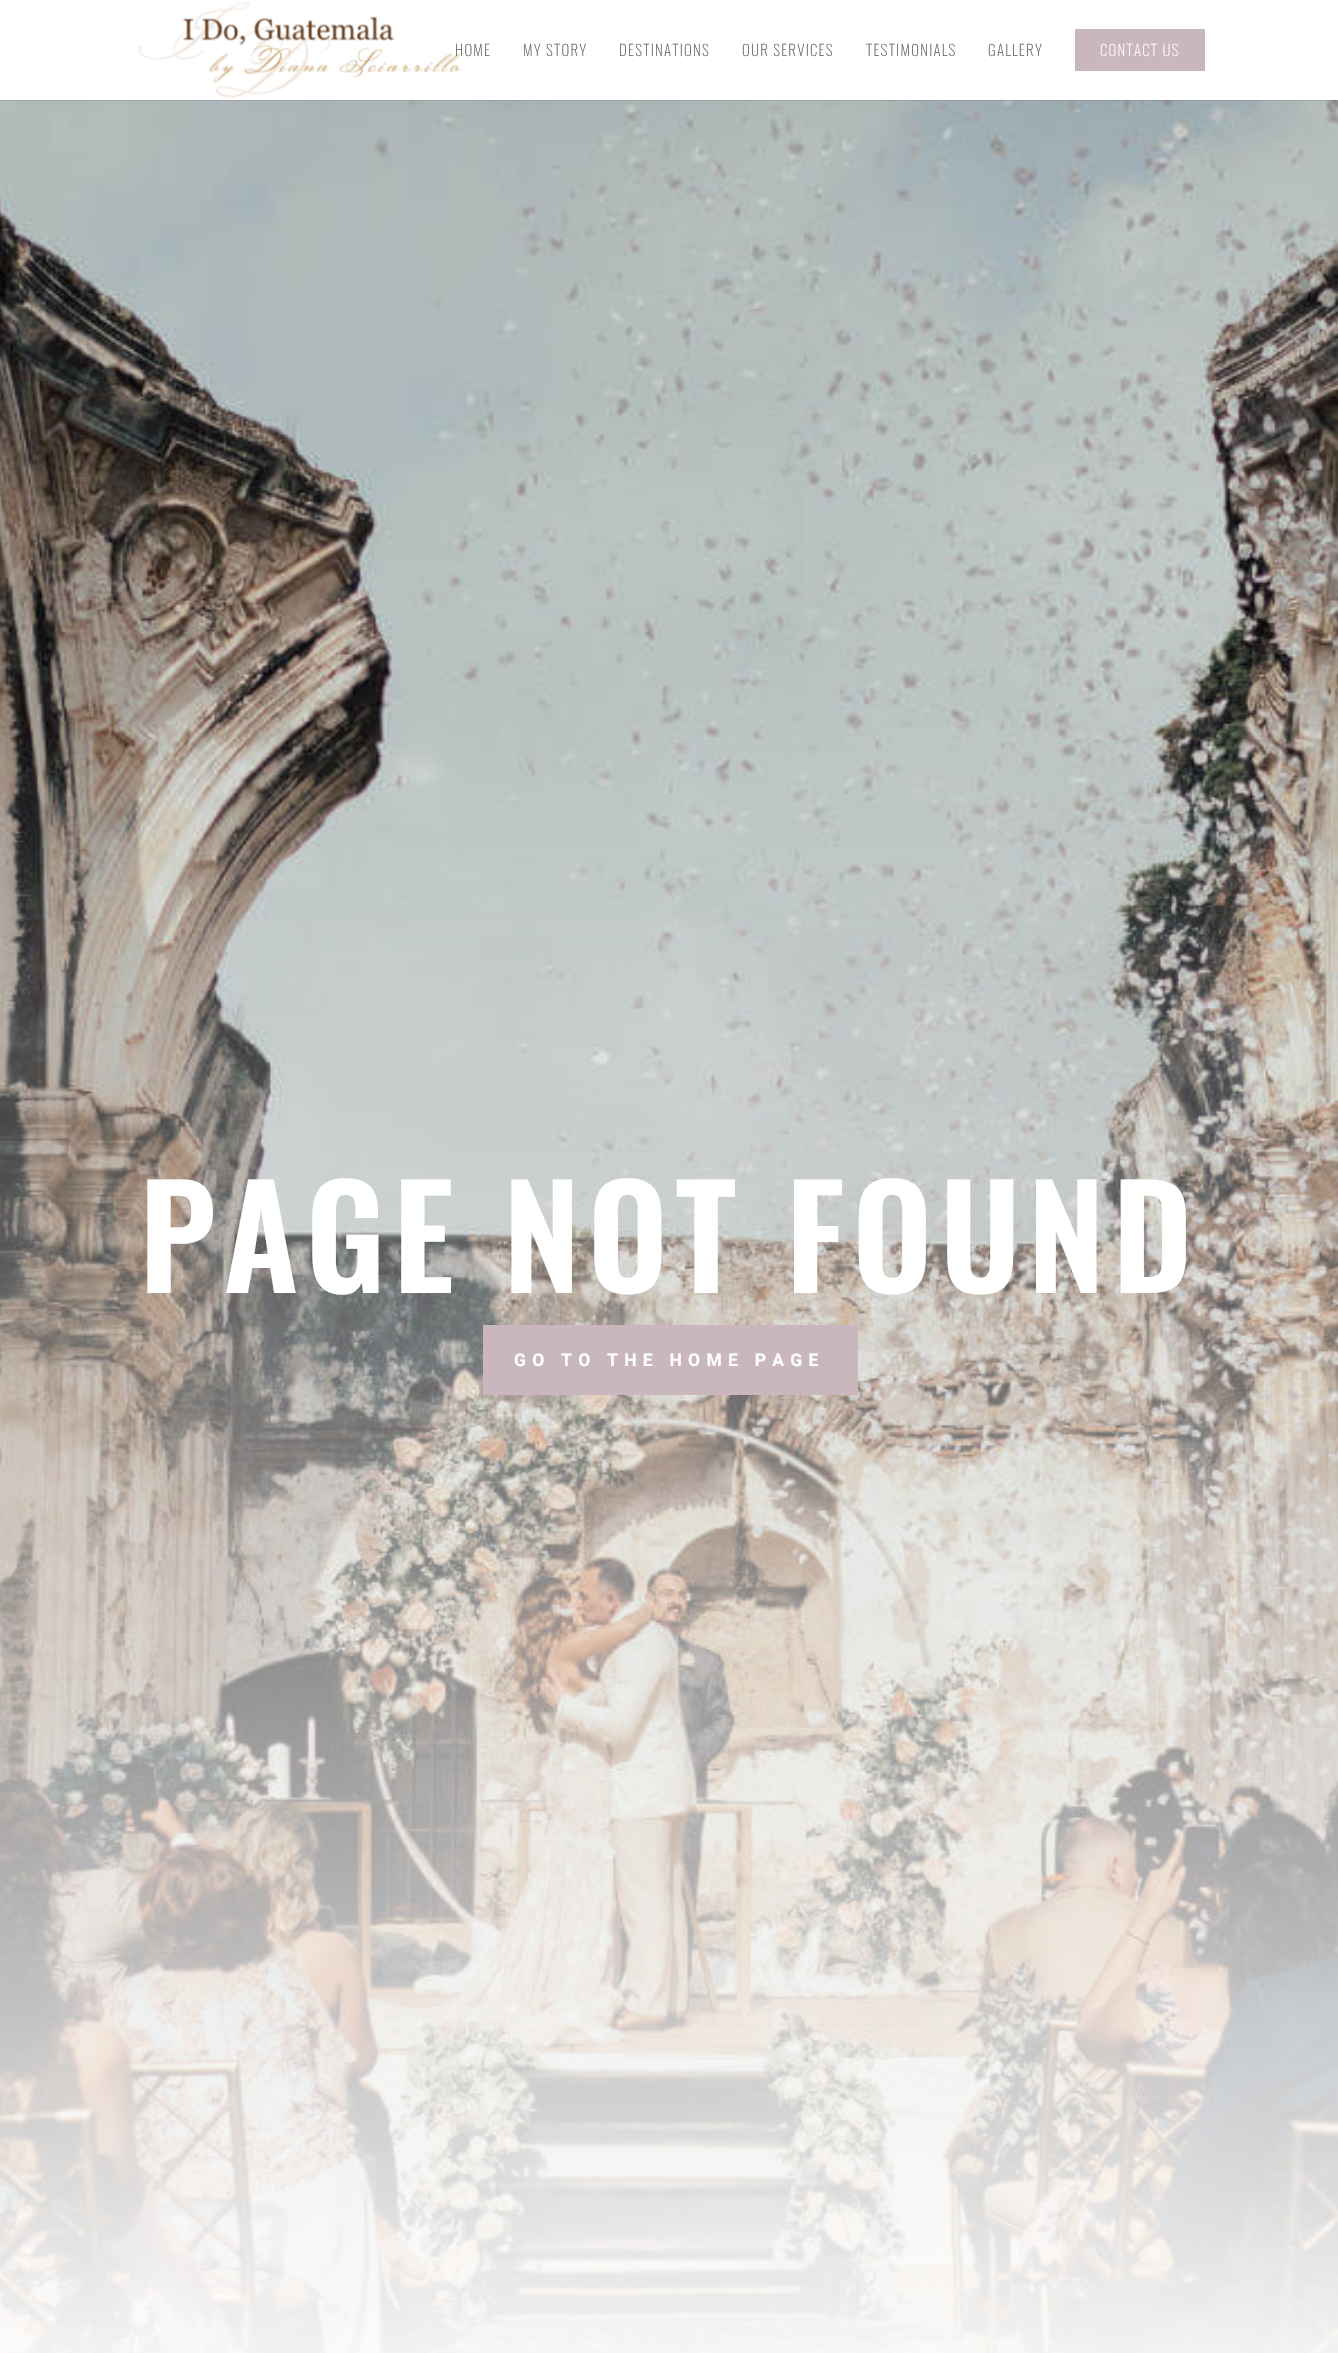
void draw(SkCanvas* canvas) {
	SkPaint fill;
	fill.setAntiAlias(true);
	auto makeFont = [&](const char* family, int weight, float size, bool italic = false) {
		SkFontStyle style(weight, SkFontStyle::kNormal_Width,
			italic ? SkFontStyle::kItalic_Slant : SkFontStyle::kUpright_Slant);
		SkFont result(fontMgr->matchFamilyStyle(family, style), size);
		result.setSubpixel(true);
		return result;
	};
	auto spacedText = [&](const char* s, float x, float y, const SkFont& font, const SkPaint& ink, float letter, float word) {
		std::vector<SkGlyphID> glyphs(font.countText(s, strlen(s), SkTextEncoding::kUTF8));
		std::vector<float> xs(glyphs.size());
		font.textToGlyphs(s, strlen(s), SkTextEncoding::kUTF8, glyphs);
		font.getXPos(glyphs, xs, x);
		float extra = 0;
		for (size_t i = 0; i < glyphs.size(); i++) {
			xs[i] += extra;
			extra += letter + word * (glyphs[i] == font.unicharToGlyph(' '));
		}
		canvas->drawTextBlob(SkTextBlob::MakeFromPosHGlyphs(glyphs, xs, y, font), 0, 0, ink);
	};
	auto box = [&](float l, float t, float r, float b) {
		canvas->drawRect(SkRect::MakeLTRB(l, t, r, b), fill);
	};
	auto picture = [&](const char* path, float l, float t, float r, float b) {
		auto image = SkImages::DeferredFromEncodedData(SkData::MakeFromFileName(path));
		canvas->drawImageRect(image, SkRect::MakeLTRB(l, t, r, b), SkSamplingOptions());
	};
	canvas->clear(0xFFFFFFFF);
	picture("image1.png", 0, 100, 1338, 2353);
	fill.setColor(0x1A000000);
	canvas->drawPath(SkPathBuilder().moveTo(0, 100).lineTo(0, 101).lineTo(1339, 101).lineTo(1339, 1).lineTo(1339, 100).close().detach(), fill);
	picture("image0.png", 138, 2, 461, 98);
	fill.setColor(0xFFC9B7BD);
	box(1075, 29, 1205, 71);
	box(483, 1325, 858, 1395);
	auto font1 = makeFont("Oswald", 200, 15);
	fill.setColor(0xFF666666);
	spacedText("HOME", 455, 56, font1, fill, 1.25f, 0);
	spacedText("MY STORY", 523, 56, font1, fill, 1.25f, 0);
	spacedText("DESTINATIONS", 619, 56, font1, fill, 1.25f, 0);
	spacedText("OUR SERVICES", 742, 56, font1, fill, 1.25f, 0);
	spacedText("TESTIMONIALS", 866, 56, font1, fill, 1.25f, 0);
	spacedText("GALLERY", 988, 56, font1, fill, 1.25f, 0);
	fill.setColor(0xFFFFFFFF);
	spacedText("CONTACT US", 1100, 56, font1, fill, 1.25f, 0);
	auto font2 = makeFont("Oswald", 600, 140);
	spacedText("PAGE NOT FOUND", 139, 1293, font2, fill, 7, 0);
	auto font3 = makeFont("Roboto", 700, 17.5f);
	spacedText("GO TO THE HOME PAGE", 514, 1366, font3, fill, 6.25f, 0);
}
